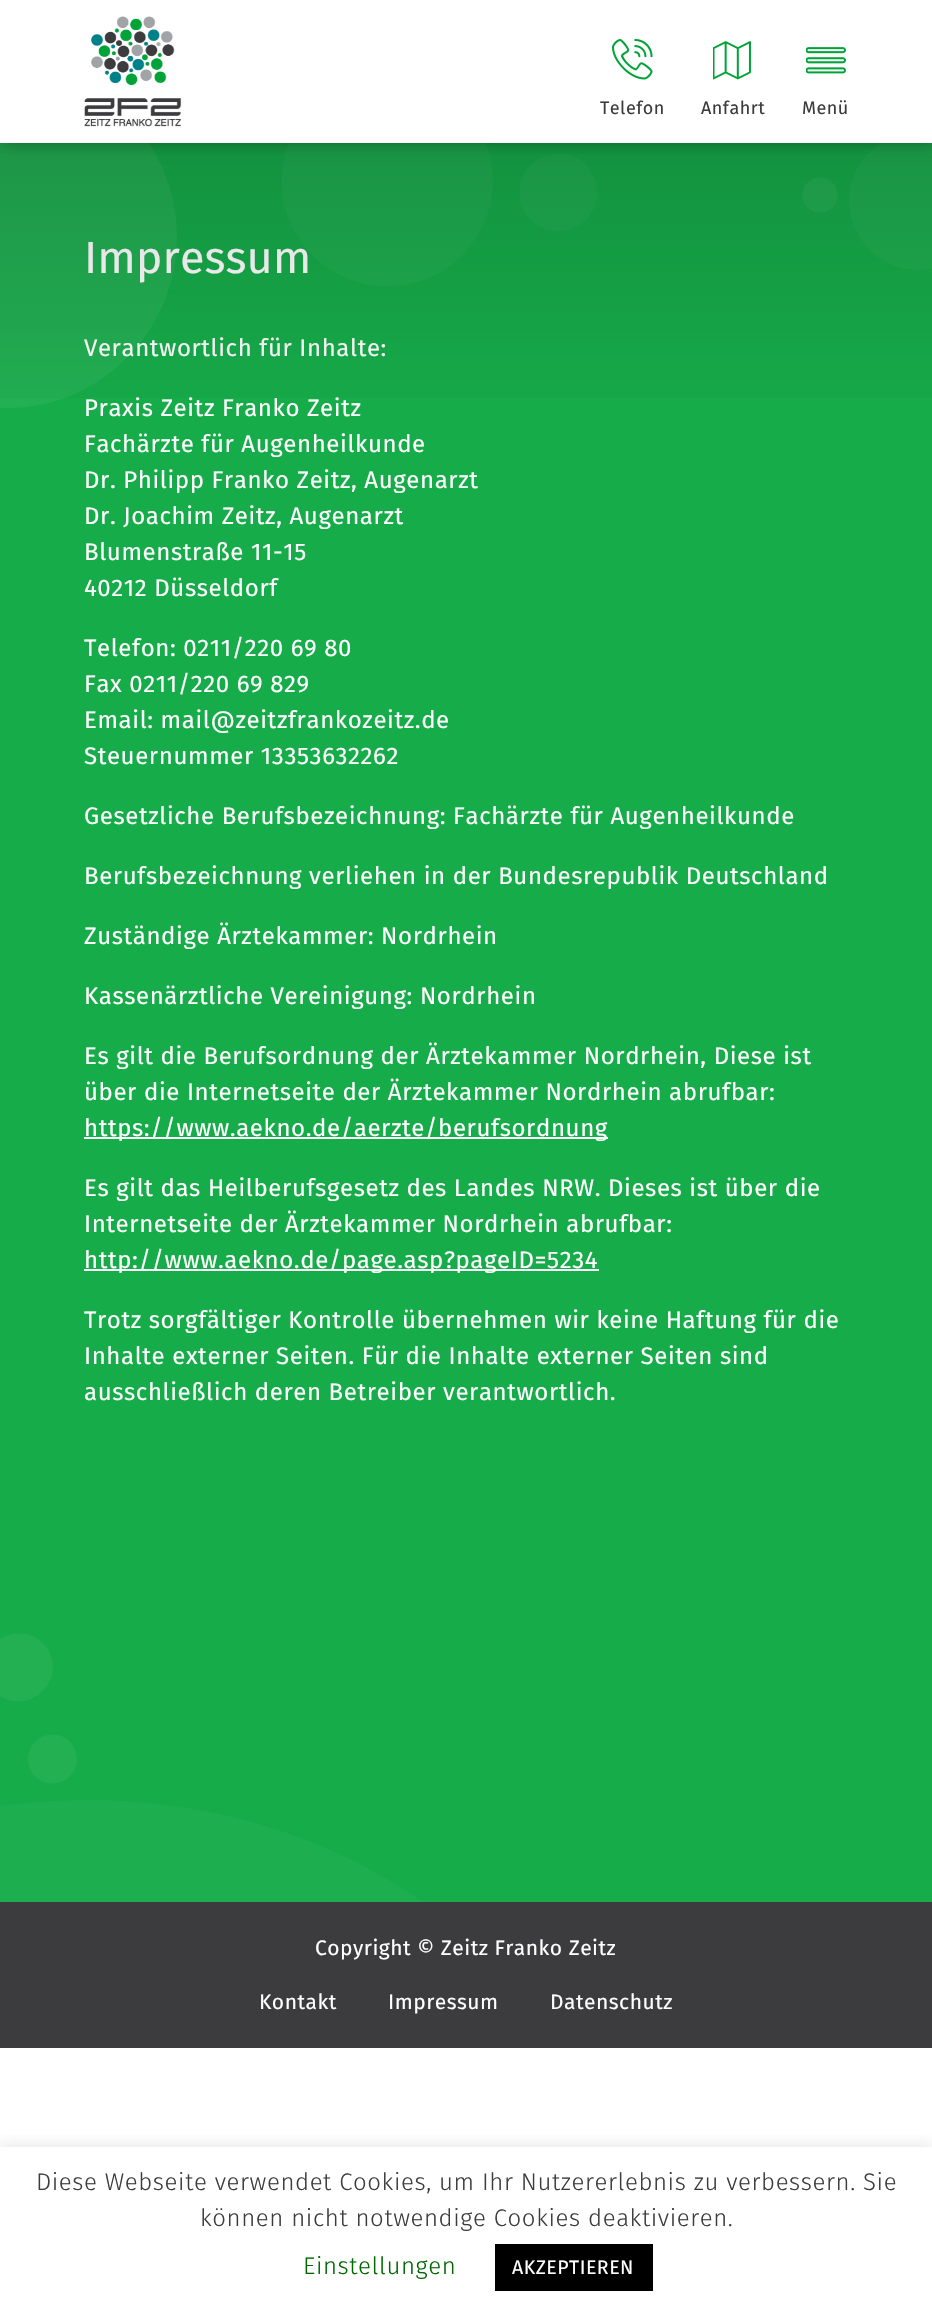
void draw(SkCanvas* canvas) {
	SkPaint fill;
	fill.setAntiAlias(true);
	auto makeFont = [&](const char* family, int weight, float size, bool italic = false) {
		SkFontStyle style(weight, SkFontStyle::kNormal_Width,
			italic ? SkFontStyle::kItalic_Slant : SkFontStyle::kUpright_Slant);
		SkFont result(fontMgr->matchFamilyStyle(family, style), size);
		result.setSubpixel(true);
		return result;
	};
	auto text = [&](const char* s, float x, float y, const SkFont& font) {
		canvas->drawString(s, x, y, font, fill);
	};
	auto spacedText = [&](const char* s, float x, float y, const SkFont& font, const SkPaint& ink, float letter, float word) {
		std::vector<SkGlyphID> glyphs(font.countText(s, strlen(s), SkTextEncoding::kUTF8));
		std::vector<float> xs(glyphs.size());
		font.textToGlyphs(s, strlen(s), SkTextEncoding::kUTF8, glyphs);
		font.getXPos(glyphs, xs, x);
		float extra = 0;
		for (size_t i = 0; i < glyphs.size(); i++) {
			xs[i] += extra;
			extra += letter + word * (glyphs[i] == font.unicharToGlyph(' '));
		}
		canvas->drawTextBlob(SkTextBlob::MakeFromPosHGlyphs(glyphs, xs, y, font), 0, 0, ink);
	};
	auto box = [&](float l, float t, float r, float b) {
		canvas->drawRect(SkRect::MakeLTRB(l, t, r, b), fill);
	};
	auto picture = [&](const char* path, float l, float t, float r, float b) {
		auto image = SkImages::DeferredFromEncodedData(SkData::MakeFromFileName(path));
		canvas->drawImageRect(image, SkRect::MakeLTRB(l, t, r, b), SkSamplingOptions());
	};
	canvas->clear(0xFFFFFFFF);
	fill.setColor(0xFF16AC4A);
	box(0, 143, 932, 1902);
	fill.setColor(0xFFFFFFFF);
	box(84, 1137, 608, 1139);
	box(84, 1269, 599, 1271);
	fill.setColor(0xFF22B053);
	canvas->drawPath(SkPathBuilder(SkPathFillType::kEvenOdd).moveTo(0, 1696).cubicTo(27, 1714, 63, 1685, 50, 1654).cubicTo(47, 1646, 40, 1639, 32, 1636).cubicTo(22, 1632, 9, 1633, 0, 1639).close().detach(), fill);
	canvas->drawCircle(52.5f, 1759, 24.5f, fill);
	fill.setColor(0xFF1DAE4F);
	canvas->drawPath(SkPathBuilder(SkPathFillType::kEvenOdd).moveTo(86, 1800).cubicTo(57, 1800, 28, 1802, 0, 1806).lineTo(0, 1909).lineTo(432, 1909).cubicTo(340, 1841, 219, 1800, 86, 1800).close().detach(), fill);
	fill.setColor(0xFF3C3C3E);
	box(0, 1902, 932, 2048);
	canvas->save();
	canvas->clipRect(SkRect::MakeLTRB(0, 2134, 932, 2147));
	fill.setColor(0x4DACABAB);
	fill.setMaskFilter(SkMaskFilter::MakeBlur(kNormal_SkBlurStyle, 7.5f));
	canvas->drawRect(SkRect::MakeLTRB(0, 2145, 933, 2315), fill);
	fill.setMaskFilter(nullptr);
	canvas->restore();
	fill.setColor(0xFF000000);
	box(495, 2244, 653, 2291);
	auto font1 = makeFont("Fira Sans", 400, 45);
	fill.setColor(0xFFFFFFFF);
	text("Impressum", 84, 273, font1);
	auto font2 = makeFont("Fira Sans", 400, 24);
	spacedText("Verantwortlich für Inhalte:", 84, 356, font2, fill, 0.6f, 0);
	spacedText("Praxis Zeitz Franko Zeitz", 84, 416, font2, fill, 0.6f, 0);
	picture("image4.png", 0, 143, 932, 408);
	{
		const SkColor colors[] = {0x26000000, 0x00000000};
		const float stops[] = {0, 1};
		const SkPoint ends[] = {{467, 141}, {467, 441}};
		fill.setShader(SkGradientShader::MakeLinear(ends, colors, stops, 2, SkTileMode::kClamp));
		fill.setAlpha(255);
	}
	box(0, 143, 932, 398);
	fill.setShader(nullptr);
	fill.setColor(0x54000000);
	fill.setMaskFilter(SkMaskFilter::MakeBlur(kNormal_SkBlurStyle, 7.5f));
	canvas->drawRect(SkRect::MakeLTRB(3, 0, 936, 143), fill);
	fill.setMaskFilter(nullptr);
	fill.setColor(0xFFFFFFFF);
	box(0, 0, 932, 143);
	auto font3 = makeFont("Fira Sans", 400, 18);
	fill.setColor(0xFF3C3C3E);
	spacedText("Anfahrt", 701, 114, font3, fill, 0.5f, 0);
	picture("image2.png", 713, 41, 751, 80);
	spacedText("Telefon", 600, 114, font3, fill, 0.5f, 0);
	picture("image1.png", 612, 39, 653, 80);
	spacedText("Menü", 802, 114, font3, fill, 0.5f, 0);
	picture("image3.png", 806, 47, 846, 74);
	picture("image0.png", 84, 16, 182, 127);
	fill.setColor(0xFFFFFFFF);
	spacedText("Fachärzte für Augenheilkunde", 84, 452, font2, fill, 0.6f, 0);
	spacedText("Dr. Philipp Franko Zeitz, Augenarzt", 84, 488, font2, fill, 0.6f, 0);
	spacedText("Dr. Joachim Zeitz, Augenarzt", 84, 524, font2, fill, 0.6f, 0);
	spacedText("Blumenstraße 11-15", 84, 560, font2, fill, 0.6f, 0);
	spacedText("40212 Düsseldorf", 84, 596, font2, fill, 0.6f, 0);
	spacedText("Telefon: 0211/220 69 80", 84, 656, font2, fill, 0.6f, 0);
	spacedText("Fax 0211/220 69 829", 84, 692, font2, fill, 0.6f, 0);
	spacedText("Email: mail@zeitzfrankozeitz.de", 84, 728, font2, fill, 0.6f, 0);
	spacedText("Steuernummer 13353632262", 84, 764, font2, fill, 0.6f, 0);
	spacedText("Gesetzliche Berufsbezeichnung: Fachärzte für Augenheilkunde", 84, 824, font2, fill, 0.6f, 0);
	spacedText("Berufsbezeichnung verliehen in der Bundesrepublik Deutschland", 84, 884, font2, fill, 0.6f, 0);
	spacedText("Zuständige Ärztekammer: Nordrhein", 84, 944, font2, fill, 0.6f, 0);
	spacedText("Kassenärztliche Vereinigung: Nordrhein", 84, 1004, font2, fill, 0.6f, 0);
	spacedText("Es gilt die Berufsordnung der Ärztekammer Nordrhein, Diese ist", 84, 1064, font2, fill, 0.6f, 0);
	spacedText("über die Internetseite der Ärztekammer Nordrhein abrufbar:", 84, 1100, font2, fill, 0.6f, 0);
	spacedText("https://www.aekno.de/aerzte/berufsordnung", 84, 1136, font2, fill, 0.6f, 0);
	spacedText("Es gilt das Heilberufsgesetz des Landes NRW. Dieses ist über die", 84, 1196, font2, fill, 0.6f, 0);
	spacedText("Internetseite der Ärztekammer Nordrhein abrufbar:", 84, 1232, font2, fill, 0.6f, 0);
	spacedText("http://www.aekno.de/page.asp?pageID=5234", 84, 1268, font2, fill, 0.6f, 0);
	spacedText("Trotz sorgfältiger Kontrolle übernehmen wir keine Haftung für die", 84, 1328, font2, fill, 0.6f, 0);
	spacedText("Inhalte externer Seiten. Für die Inhalte externer Seiten sind", 84, 1364, font2, fill, 0.6f, 0);
	spacedText("ausschließlich deren Betreiber verantwortlich.", 84, 1400, font2, fill, 0.6f, 0);
	auto font4 = makeFont("Fira Sans", 400, 21);
	spacedText("Copyright © Zeitz Franko Zeitz", 315, 1955, font4, fill, 0.5f, 0);
	spacedText("Kontakt", 259, 2009, font4, fill, 0.5f, 0);
	spacedText("Impressum", 388, 2009, font4, fill, 0.5f, 0);
	spacedText("Datenschutz", 550, 2009, font4, fill, 0.5f, 0);
	auto font5 = makeFont("Fira Sans", 300, 24);
	fill.setColor(0xFF3C3C3E);
	spacedText("Diese Webseite verwendet Cookies, um Ihr Nutzererlebnis zu verbessern. Sie", 36, 2190, font5, fill, 0.6f, 0);
	spacedText("können nicht notwendige Cookies deaktivieren.", 200, 2226, font5, fill, 0.6f, 0);
	fill.setColor(0xFF006600);
	spacedText("Einstellungen", 303, 2274, font5, fill, 0.6f, 0);
	auto font6 = makeFont("Fira Sans", 400, 19.5f);
	fill.setColor(0xFFFFFFFF);
	spacedText("AKZEPTIEREN", 512, 2274, font6, fill, 0.5f, 0);
}
